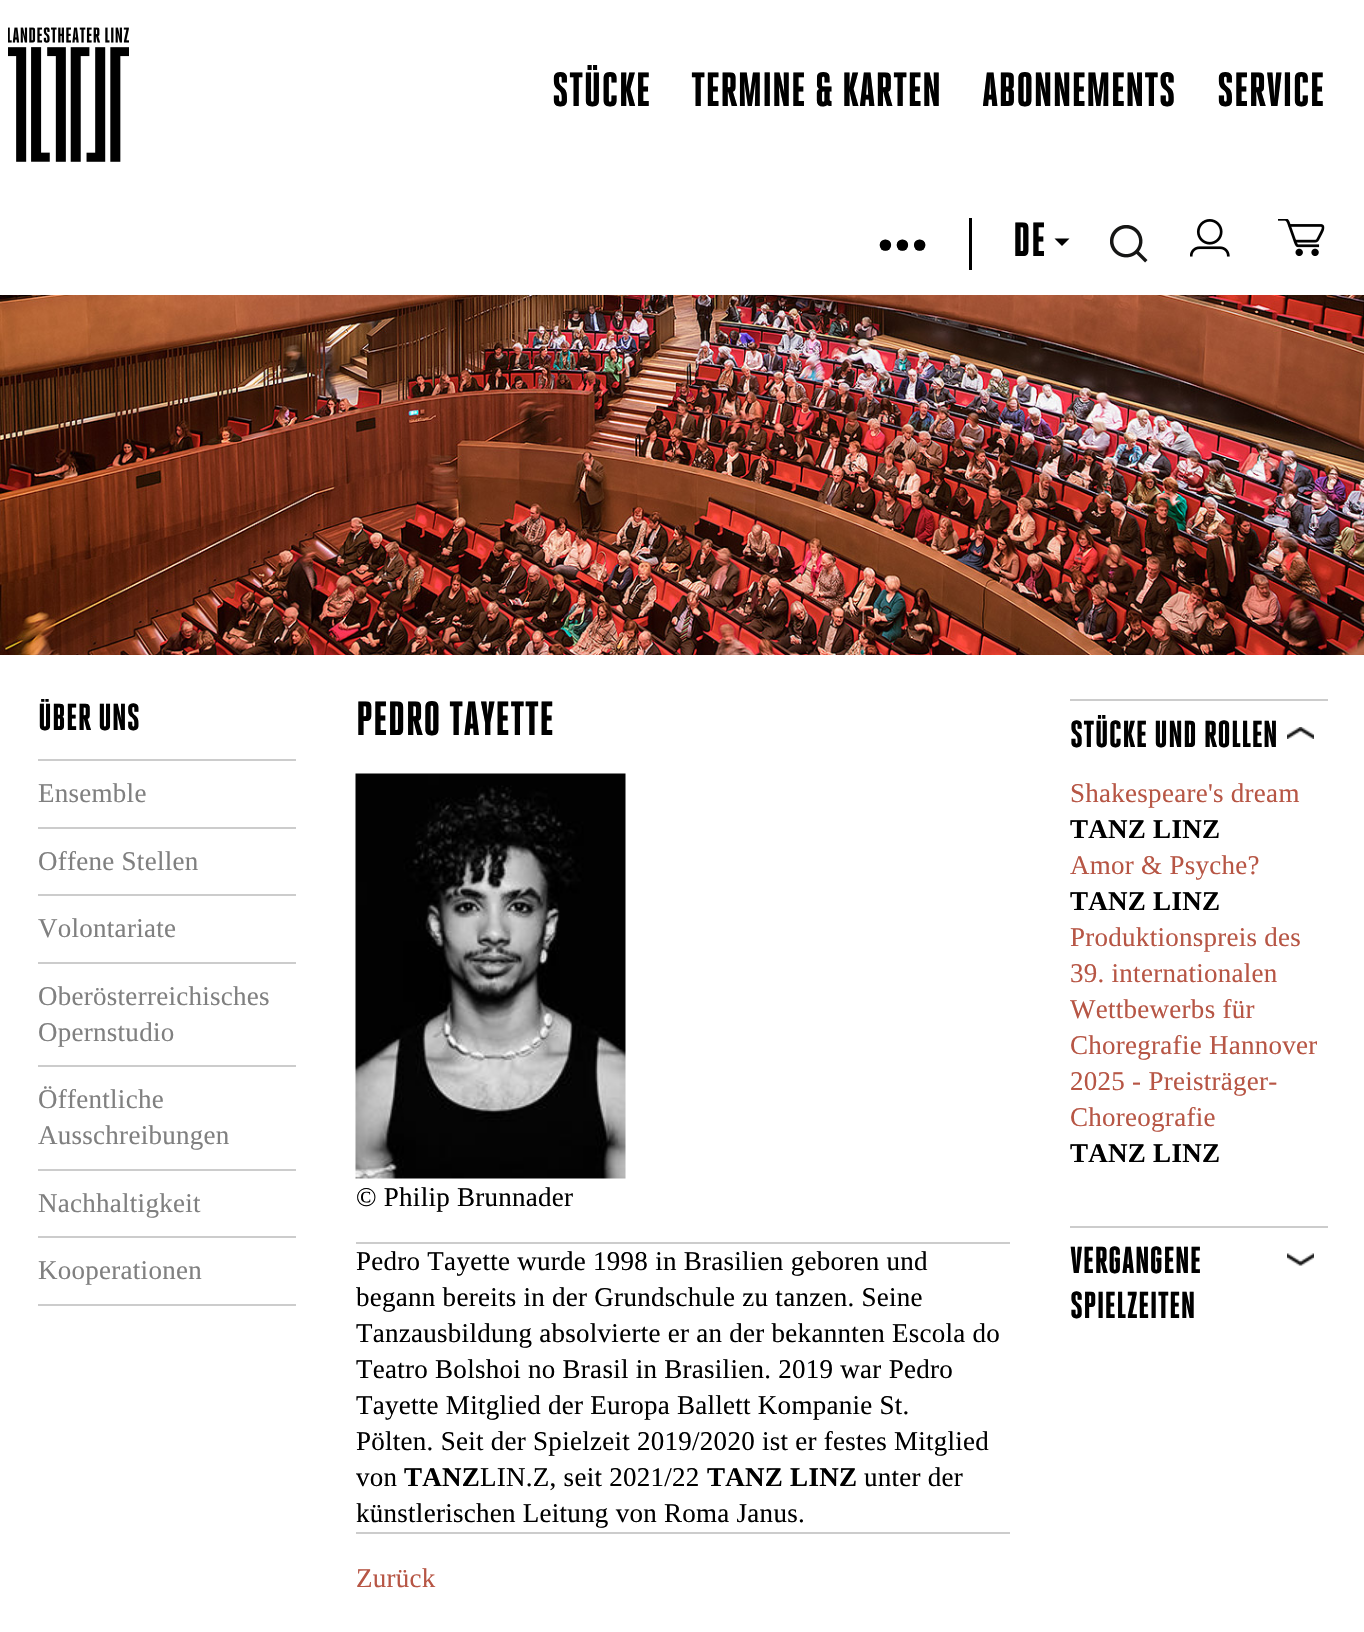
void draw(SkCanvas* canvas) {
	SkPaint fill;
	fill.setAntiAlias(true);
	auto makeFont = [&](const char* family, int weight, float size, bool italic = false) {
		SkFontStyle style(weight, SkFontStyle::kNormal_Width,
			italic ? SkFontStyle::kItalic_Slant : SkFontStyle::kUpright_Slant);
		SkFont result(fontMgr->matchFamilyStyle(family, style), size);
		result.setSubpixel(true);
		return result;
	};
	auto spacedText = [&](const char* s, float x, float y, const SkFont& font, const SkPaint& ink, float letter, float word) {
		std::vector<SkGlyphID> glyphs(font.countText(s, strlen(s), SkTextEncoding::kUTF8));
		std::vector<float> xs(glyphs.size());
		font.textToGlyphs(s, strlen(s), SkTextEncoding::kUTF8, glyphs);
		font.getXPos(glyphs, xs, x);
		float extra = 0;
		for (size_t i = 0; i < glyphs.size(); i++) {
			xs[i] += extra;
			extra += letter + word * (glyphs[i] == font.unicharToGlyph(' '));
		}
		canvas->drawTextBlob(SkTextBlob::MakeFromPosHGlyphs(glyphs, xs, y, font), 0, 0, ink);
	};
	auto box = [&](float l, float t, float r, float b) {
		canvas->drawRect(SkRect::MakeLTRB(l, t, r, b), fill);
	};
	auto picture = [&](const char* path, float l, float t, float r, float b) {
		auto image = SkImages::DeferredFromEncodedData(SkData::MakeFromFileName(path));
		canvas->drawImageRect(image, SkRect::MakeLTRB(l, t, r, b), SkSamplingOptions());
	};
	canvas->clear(0xFFFFFFFF);
	picture("image0.png", 8, 27, 129, 162);
	fill.setColor(0xFF000000);
	box(969, 218, 972, 270);
	canvas->drawPath(SkPathBuilder().moveTo(1054.5f, 238.5f).lineTo(1069.5f, 238.5f).lineTo(1062, 246).close().detach(), fill);
	picture("image1.png", 1110, 225, 1148, 263);
	picture("image2.png", 1190, 219, 1230, 257);
	picture("image3.png", 1278, 219, 1325, 256);
	picture("image4.png", 0, 295, 1364, 655);
	fill.setColor(0xFFCCCCCC);
	box(38, 759, 296, 761);
	box(38, 827, 296, 829);
	box(38, 894, 296, 896);
	box(38, 962, 296, 964);
	box(38, 1065, 296, 1067);
	box(38, 1169, 296, 1171);
	box(38, 1236, 296, 1238);
	box(38, 1304, 296, 1306);
	picture("image5.png", 355, 773, 626, 1179);
	box(356, 1242, 1010, 1244);
	box(356, 1532, 1010, 1534);
	box(1070, 699, 1328, 701);
	picture("image6.png", 1287, 727, 1314, 739);
	box(1070, 1226, 1328, 1228);
	picture("image7.png", 1287, 1253, 1314, 1266);
	auto font1 = makeFont("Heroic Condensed", 900, 48);
	fill.setColor(0xFF000000);
	spacedText("STÜCKE", 552, 106, font1, fill, 0.27f, 0);
	spacedText("TERMINE & KARTEN", 691, 106, font1, fill, 0.27f, 0);
	spacedText("ABONNEMENTS", 982, 106, font1, fill, 0.27f, 0);
	spacedText("SERVICE", 1217, 106, font1, fill, 0.27f, 0);
	auto font2 = makeFont("Liberation Serif", 400, 48);
	spacedText("•••", 877, 261, font2, fill, 0.27f, 0);
	spacedText("DE", 1013, 256, font1, fill, 0.27f, 0);
	canvas->save();
	canvas->clipRect(SkRect::MakeLTRB(0, 699, 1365, 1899));
	auto font3 = makeFont("Heroic Condensed", 900, 37.5f);
	spacedText("ÜBER UNS", 38, 730, font3, fill, 0.27f, 0);
	canvas->restore();
	auto font4 = makeFont("Liberation Serif", 400, 27);
	fill.setColor(0xFF808080);
	spacedText("Ensemble", 38, 802, font4, fill, 0.27f, 0);
	spacedText("Offene Stellen", 38, 870, font4, fill, 0.27f, 0);
	spacedText("Volontariate", 38, 937, font4, fill, 0.27f, 0);
	spacedText("Oberösterreichisches", 38, 1005, font4, fill, 0.27f, 0);
	spacedText("Opernstudio", 38, 1041, font4, fill, 0.27f, 0);
	spacedText("Öffentliche", 38, 1108, font4, fill, 0.27f, 0);
	spacedText("Ausschreibungen", 38, 1144, font4, fill, 0.27f, 0);
	spacedText("Nachhaltigkeit", 38, 1212, font4, fill, 0.27f, 0);
	spacedText("Kooperationen", 38, 1279, font4, fill, 0.27f, 0);
	fill.setColor(0xFF000000);
	spacedText("PEDRO TAYETTE", 356, 735, font1, fill, 0.27f, 0);
	spacedText("© Philip Brunnader", 356, 1206, font4, fill, 0.27f, 0);
	spacedText("Pedro Tayette wurde 1998 in Brasilien geboren und", 356, 1270, font4, fill, 0.27f, 0);
	spacedText("begann bereits in der Grundschule zu tanzen. Seine", 356, 1306, font4, fill, 0.27f, 0);
	spacedText("Tanzausbildung absolvierte er an der bekannten Escola do", 356, 1342, font4, fill, 0.27f, 0);
	spacedText("Teatro Bolshoi no Brasil in Brasilien. 2019 war Pedro", 356, 1378, font4, fill, 0.27f, 0);
	spacedText("Tayette Mitglied der Europa Ballett Kompanie St.", 356, 1414, font4, fill, 0.27f, 0);
	spacedText("Pölten. Seit der Spielzeit 2019/2020 ist er festes Mitglied", 356, 1450, font4, fill, 0.27f, 0);
	spacedText("von", 356, 1486, font4, fill, 0.27f, 0);
	auto font5 = makeFont("Liberation Serif", 700, 27);
	spacedText("TANZ", 404, 1486, font5, fill, 0.27f, 0);
	spacedText("LIN.Z, seit 2021/22", 480, 1486, font4, fill, 0.27f, 0);
	spacedText("TANZ LINZ", 707, 1486, font5, fill, 0.27f, 0);
	spacedText("unter der", 864, 1486, font4, fill, 0.27f, 0);
	spacedText("künstlerischen Leitung von Roma Janus.", 356, 1522, font4, fill, 0.27f, 0);
	fill.setColor(0xFFB75645);
	spacedText("Zurück", 356, 1587, font4, fill, 0.27f, 0);
	fill.setColor(0xFF000000);
	spacedText("STÜCKE UND ROLLEN", 1070, 747, font3, fill, 0.27f, 0);
	fill.setColor(0xFFB75645);
	spacedText("Shakespeare's dream", 1070, 802, font4, fill, 0.27f, 0);
	fill.setColor(0xFF000000);
	spacedText("TANZ LINZ", 1070, 838, font5, fill, 0.27f, 0);
	fill.setColor(0xFFB75645);
	spacedText("Amor & Psyche?", 1070, 874, font4, fill, 0.27f, 0);
	fill.setColor(0xFF000000);
	spacedText("TANZ LINZ", 1070, 910, font5, fill, 0.27f, 0);
	fill.setColor(0xFFB75645);
	spacedText("Produktionspreis des", 1070, 946, font4, fill, 0.27f, 0);
	spacedText("39. internationalen", 1070, 982, font4, fill, 0.27f, 0);
	spacedText("Wettbewerbs für", 1070, 1018, font4, fill, 0.27f, 0);
	spacedText("Choregrafie Hannover", 1070, 1054, font4, fill, 0.27f, 0);
	spacedText("2025 - Preisträger-", 1070, 1090, font4, fill, 0.27f, 0);
	spacedText("Choreografie", 1070, 1126, font4, fill, 0.27f, 0);
	fill.setColor(0xFF000000);
	spacedText("TANZ LINZ", 1070, 1162, font5, fill, 0.27f, 0);
	spacedText("VERGANGENE", 1070, 1273, font3, fill, 0.27f, 0);
	spacedText("SPIELZEITEN", 1070, 1318, font3, fill, 0.27f, 0);
}
